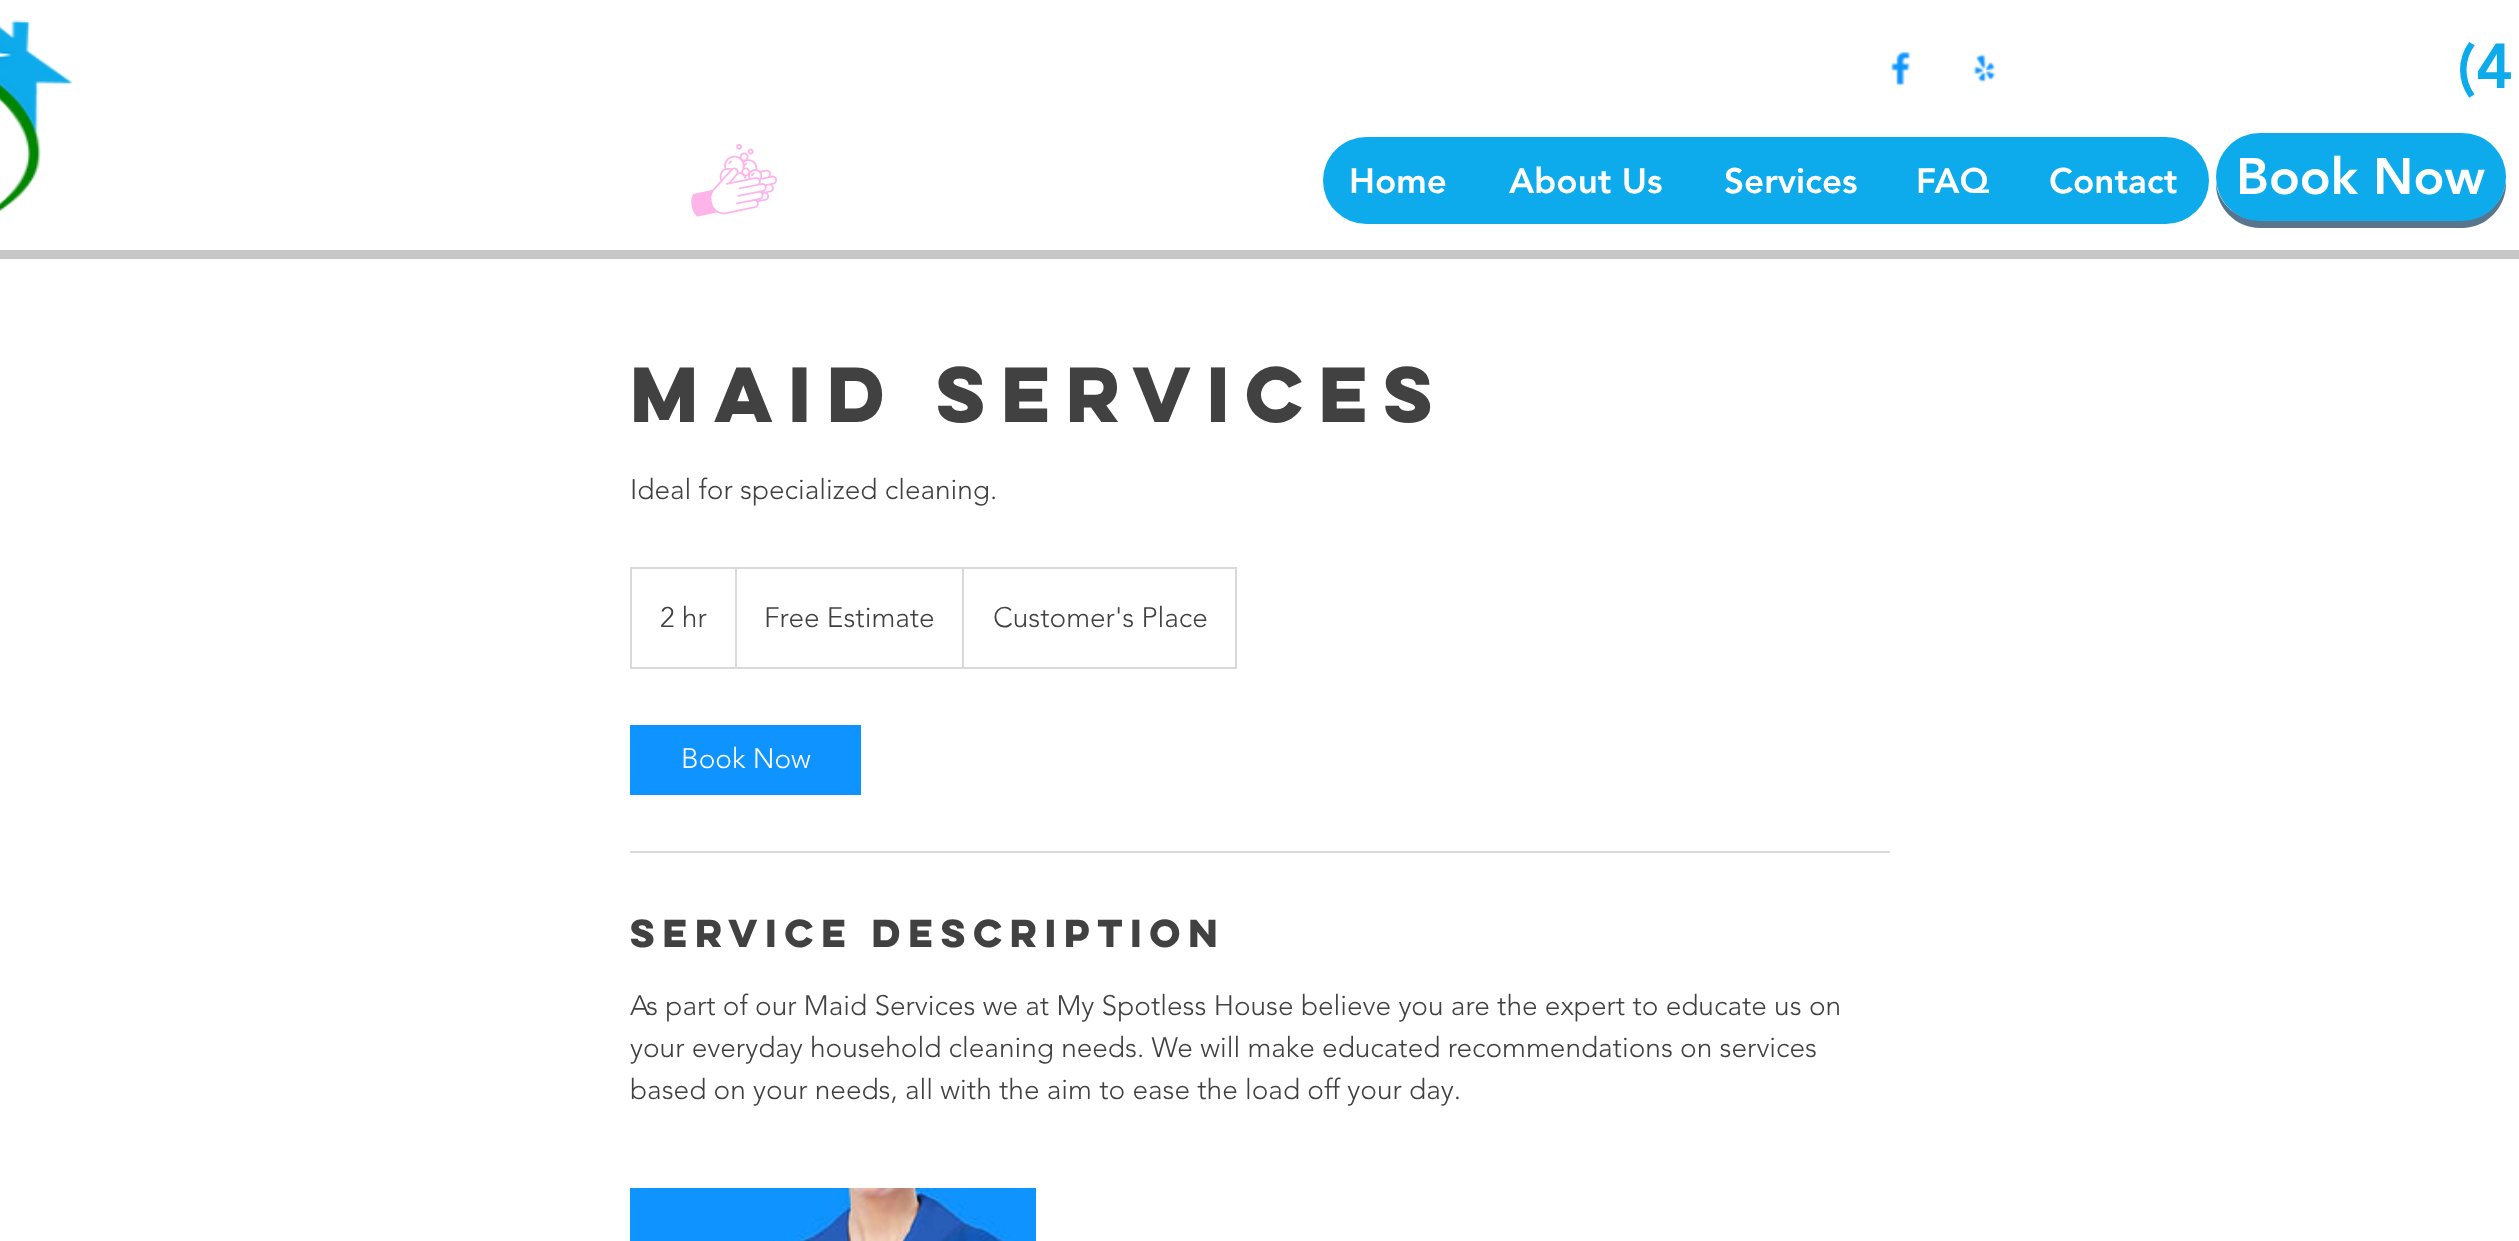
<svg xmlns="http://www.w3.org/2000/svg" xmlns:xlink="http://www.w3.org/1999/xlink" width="2519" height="1241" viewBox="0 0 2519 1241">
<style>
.cls-1{font:900 63px 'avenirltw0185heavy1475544';fill:#0dabec}
.cls-2{font:900 35px 'avenirltw0185heavy1475544';fill:#ffffff}
.cls-3{font:900 50.75px 'avenirltw0185heavy1475544';fill:#ffffff}
.cls-4{font:bold 70px 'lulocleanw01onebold';fill:#414141}
.cls-5{font:300 28px 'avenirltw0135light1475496';fill:#414141}
.cls-6{font:300 28px 'avenirltw0135light1475496';fill:#ffffff}
.cls-7{font:bold 35px 'lulocleanw01onebold';fill:#414141}
</style>
<defs>
<clipPath id="clip1"><rect x="632" y="569" width="604" height="98"/></clipPath>
</defs>
<rect width="100%" height="100%" fill="#ffffff"/>
<image xlink:href="image0.png" x="0" y="20" width="72" height="192"/>
<image xlink:href="image1.png" x="691" y="143" width="86" height="74"/>
<rect fill="#c7c7c7" x="0" y="250" width="2519" height="9"/>
<image xlink:href="image2.png" x="1891" y="51" width="20" height="35"/>
<image xlink:href="image3.png" x="1973" y="54" width="23" height="29"/>
<rect fill="#0dabec" x="1323" y="137" width="886" height="87" rx="43.5"/>
<path fill="#58758d" d="M2216 183V184C2216 208 2236 228 2260 228H2462C2486 228 2506 208 2506 184V180C2504 203 2485 220 2462 220H2259C2237 220 2219 204 2216 183Z"/>
<rect fill="#0dabec" x="2216" y="133" width="290" height="88" rx="44"/>
<rect fill="none" stroke="#d9d9d9" stroke-width="2" x="631" y="568" width="605" height="100"/>
<g clip-path="url(#clip1)">
<path fill="#d9d9d9" d="M735 667V567L737 569V667Z"/>
<path fill="#d9d9d9" d="M962 667V567L964 569V667Z"/>
</g>
<rect fill="#0f93fe" x="630" y="725" width="231" height="70"/>
<rect fill="#d9d9d9" x="630" y="851" width="1260" height="2"/>
<image xlink:href="image4.png" x="630" y="1188" width="406" height="53"/>
<image xlink:href="image5.png" x="784" y="1188" width="236" height="53"/>
<text class="cls-1" x="2457" y="88">(4</text>
<text class="cls-2" x="1349" y="193">Home</text>
<text class="cls-2" x="1509" y="193">About Us</text>
<text class="cls-2" x="1724" y="193">Services</text>
<text class="cls-2" x="1916" y="193">FAQ</text>
<text class="cls-2" x="2049" y="193">Contact</text>
<text class="cls-3" x="2236" y="194">Book Now</text>
<text class="cls-4" x="630" y="422">Maid Services</text>
<text class="cls-5" x="630" y="499">Ideal for specialized cleaning.</text>
<text class="cls-5" x="660" y="627">2 hr</text>
<text class="cls-5" x="764" y="627">Free Estimate</text>
<text class="cls-5" x="993" y="627">Customer's Place</text>
<text class="cls-6" x="681" y="768">Book Now</text>
<text class="cls-7" x="630" y="947">Service Description</text>
<text class="cls-5"><tspan x="630" y="1015">As part of our Maid Services we at My Spotless House believe you are the expert to educate us on</tspan><tspan x="630" y="1057">your everyday household cleaning needs. We will make educated recommendations on services</tspan><tspan x="630" y="1099">based on your needs, all with the aim to ease the load off your day.</tspan></text>
</svg>
